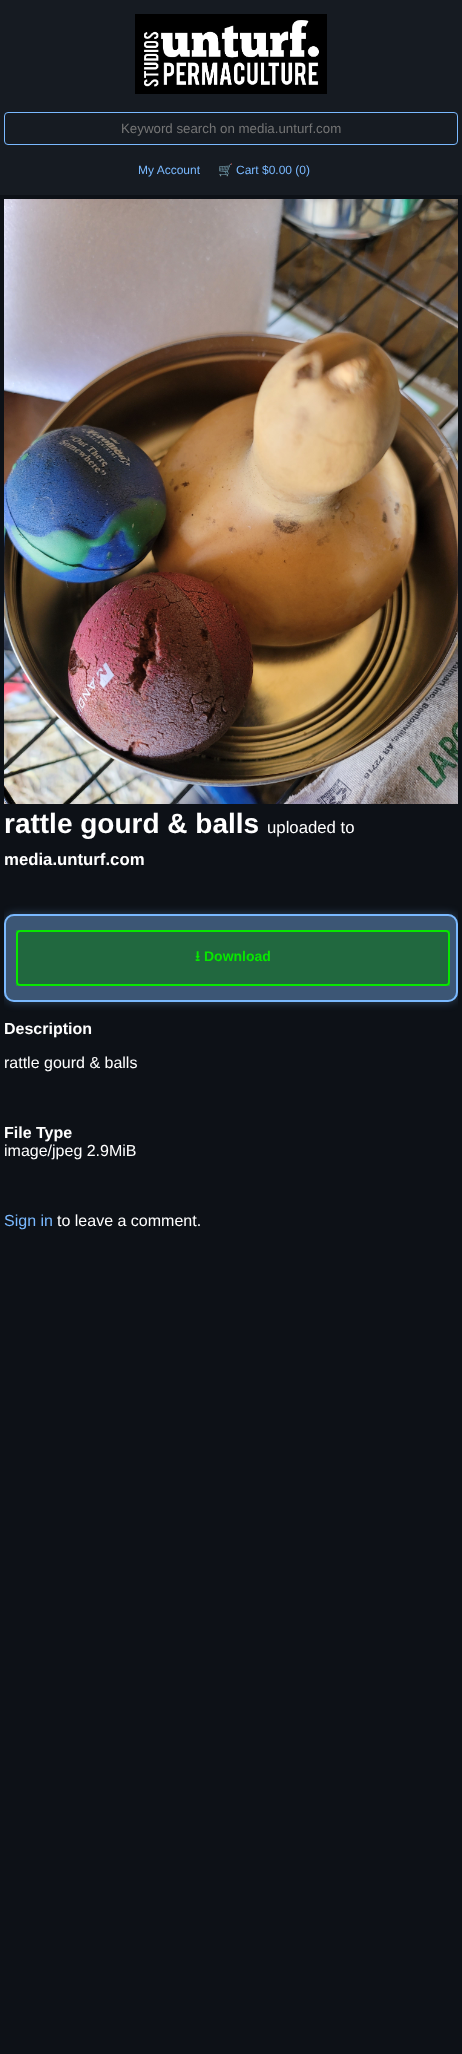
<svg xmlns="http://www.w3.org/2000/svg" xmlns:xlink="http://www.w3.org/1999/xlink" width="462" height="2054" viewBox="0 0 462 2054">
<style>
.cls-1{font:13.3px Liberation Sans;fill:#757575}
.cls-2{font:12px Liberation Sans;fill:#7ab9ff}
.cls-3{font:12px Noto Color Emoji;fill:#7ab9ff}
.cls-4{font:bold 28px Liberation Sans;fill:#ffffff}
.cls-5{font:16.75px Liberation Sans;fill:#ffffff}
.cls-6{font:bold 16.75px Liberation Sans;fill:#ffffff}
.cls-7{font:bold 14px 'Noto Sans Symbols 2';fill:#08e700}
.cls-8{font:bold 14px Liberation Sans;fill:#08e700}
.cls-9{font:bold 16px Liberation Sans;fill:#ffffff}
.cls-10{font:16px Liberation Sans;fill:#ffffff}
.cls-11{font:16px Liberation Sans;fill:#7ab9ff}
</style>
<defs>
<clipPath id="clip1"><rect x="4" y="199" width="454" height="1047"/></clipPath>
</defs>
<rect width="100%" height="100%" fill="#0d1117"/>
<rect fill="#161b22" x="0" y="0" width="462" height="195"/>
<image xlink:href="image0.png" x="135" y="14" width="192" height="80"/>
<rect fill="none" stroke="#7ab9ff" x="4.5" y="112.5" width="453" height="32" rx="3.5"/>
<image xlink:href="image1.png" x="4" y="199" width="454" height="605"/>
<g clip-path="url(#clip1)">
<rect fill="#7ab9ff" fill-opacity="0.3" filter="blur(5px)" x="4" y="914" width="454" height="88" rx="10"/>
</g>
<rect fill="#2d3748" x="4" y="914" width="454" height="88" rx="10"/>
<image xlink:href="image2.png" x="4" y="914" width="454" height="88"/>
<rect fill="none" stroke="#7ab9ff" stroke-width="2" x="5" y="915" width="452" height="86" rx="9"/>
<rect fill="#2d3748" x="16" y="930" width="434" height="56" rx="4"/>
<rect fill="#00fb24" fill-opacity="0.25" x="16" y="930" width="434" height="56"/>
<rect fill="none" stroke="#08e700" stroke-width="2" x="17" y="931" width="432" height="54" rx="3"/>
<text class="cls-1" x="121" y="133">Keyword search on media.unturf.com</text>
<text class="cls-2" x="138" y="174">My Account</text>
<text class="cls-3" x="218" y="174">🛒</text>
<text class="cls-2" x="236" y="174">Cart $0.00 (0)</text>
<text class="cls-4" x="4" y="833">rattle gourd &amp; balls</text>
<text class="cls-5" x="267" y="833">uploaded to</text>
<text class="cls-6" x="4" y="865">media.unturf.com</text>
<text class="cls-7" x="195" y="961">⭳</text>
<text class="cls-8" x="204" y="961">Download</text>
<text class="cls-9" x="4" y="1034">Description</text>
<text class="cls-10" x="4" y="1068">rattle gourd &amp; balls</text>
<text class="cls-9" x="4" y="1138">File Type</text>
<text class="cls-10" x="4" y="1156">image/jpeg 2.9MiB</text>
<text class="cls-11" x="4" y="1226">Sign in</text>
<text class="cls-10" x="57" y="1226">to leave a comment.</text>
</svg>
